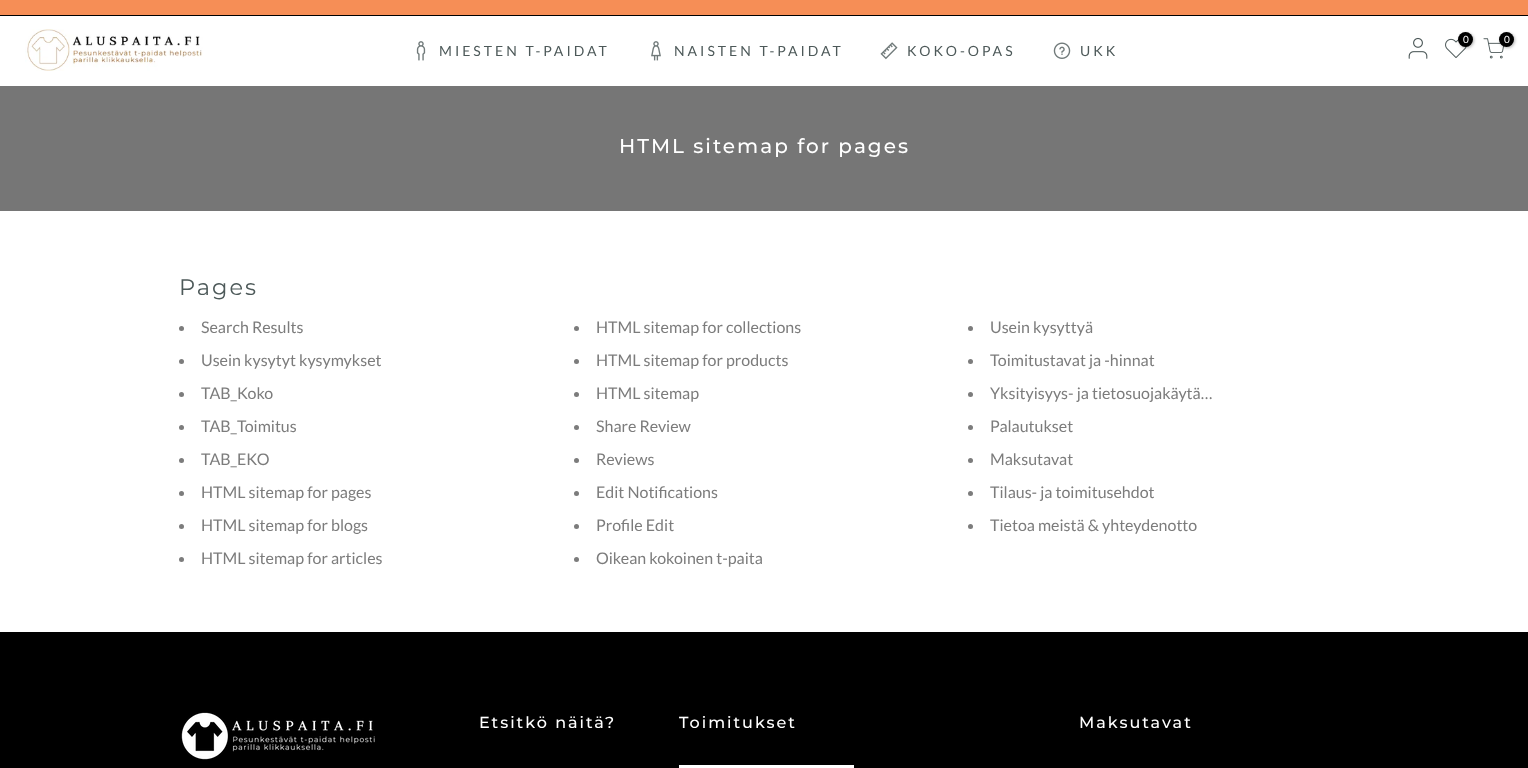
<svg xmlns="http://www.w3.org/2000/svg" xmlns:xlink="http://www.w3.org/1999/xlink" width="1528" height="768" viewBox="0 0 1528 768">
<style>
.cls-1{font:10px Lato;fill:#ffffff}
.cls-2{font:14px Lato;letter-spacing:3px;fill:#4d5959}
.cls-3{font:500 20px Montserrat;letter-spacing:2px;fill:#ffffff}
.cls-4{font:22.5px Montserrat;letter-spacing:2px;fill:#4d5959}
.cls-5{font:16px Lato;fill:#7c7c7c}
.cls-6{font:500 16px Montserrat;letter-spacing:2px;fill:#ffffff}
</style>
<rect width="100%" height="100%" fill="#ffffff"/>
<rect fill="#f68e56" x="0" y="0" width="1528" height="15"/>
<rect fill="#000000" x="0" y="15" width="1528" height="1"/>
<image xlink:href="image0.png" x="25" y="29" width="178" height="42"/>
<image xlink:href="image1.png" x="1408" y="37" width="20" height="22"/>
<image xlink:href="image2.png" x="1445" y="38" width="22" height="20"/>
<rect fill="#000000" fill-opacity="0.3" filter="blur(1.5px)" x="1459" y="33" width="15" height="15" rx="7.5"/>
<circle fill="#000000" cx="1465.5" cy="39.5" r="7.5"/>
<image xlink:href="image3.png" x="1483" y="38" width="21" height="21"/>
<rect fill="#000000" fill-opacity="0.3" filter="blur(1.5px)" x="1500" y="33" width="15" height="15" rx="7.5"/>
<circle fill="#000000" cx="1506.5" cy="39.5" r="7.5"/>
<image xlink:href="image4.png" x="416" y="41" width="10" height="20"/>
<image xlink:href="image5.png" x="651" y="41" width="10" height="20"/>
<image xlink:href="image6.png" x="880" y="42" width="18" height="18"/>
<image xlink:href="image7.png" x="1053" y="42" width="18" height="17"/>
<rect fill="#767676" x="0" y="86" width="1528" height="125"/>
<circle fill="#7c7c7c" cx="181.5" cy="328.5" r="2.5"/>
<circle fill="#7c7c7c" cx="576.5" cy="328.5" r="2.5"/>
<circle fill="#7c7c7c" cx="970.5" cy="328.5" r="2.5"/>
<circle fill="#7c7c7c" cx="181.5" cy="361.5" r="2.5"/>
<circle fill="#7c7c7c" cx="576.5" cy="361.5" r="2.5"/>
<circle fill="#7c7c7c" cx="970.5" cy="361.5" r="2.5"/>
<circle fill="#7c7c7c" cx="181.5" cy="394.5" r="2.5"/>
<circle fill="#7c7c7c" cx="576.5" cy="394.5" r="2.5"/>
<circle fill="#7c7c7c" cx="970.5" cy="394.5" r="2.5"/>
<circle fill="#7c7c7c" cx="181.5" cy="427.5" r="2.5"/>
<circle fill="#7c7c7c" cx="576.5" cy="427.5" r="2.5"/>
<circle fill="#7c7c7c" cx="970.5" cy="427.5" r="2.5"/>
<circle fill="#7c7c7c" cx="181.5" cy="460.5" r="2.5"/>
<circle fill="#7c7c7c" cx="576.5" cy="460.5" r="2.5"/>
<circle fill="#7c7c7c" cx="970.5" cy="460.5" r="2.5"/>
<circle fill="#7c7c7c" cx="181.5" cy="493.5" r="2.5"/>
<circle fill="#7c7c7c" cx="576.5" cy="493.5" r="2.5"/>
<circle fill="#7c7c7c" cx="970.5" cy="493.5" r="2.5"/>
<circle fill="#7c7c7c" cx="181.5" cy="526.5" r="2.5"/>
<circle fill="#7c7c7c" cx="576.5" cy="526.5" r="2.5"/>
<circle fill="#7c7c7c" cx="970.5" cy="526.5" r="2.5"/>
<circle fill="#7c7c7c" cx="181.5" cy="559.5" r="2.5"/>
<circle fill="#7c7c7c" cx="576.5" cy="559.5" r="2.5"/>
<rect fill="#000000" x="0" y="632" width="1528" height="136"/>
<image xlink:href="image8.png" x="181" y="712" width="194" height="48"/>
<rect fill="#ffffff" x="679" y="765" width="175" height="3"/>
<text class="cls-1" x="1463" y="43">0</text>
<text class="cls-1" x="1504" y="43">0</text>
<text class="cls-2" x="439" y="56">MIESTEN T-PAIDAT</text>
<text class="cls-2" x="674" y="56">NAISTEN T-PAIDAT</text>
<text class="cls-2" x="907" y="56">KOKO-OPAS</text>
<text class="cls-2" x="1080" y="56">UKK</text>
<text class="cls-3" x="619" y="153">HTML sitemap for pages</text>
<text class="cls-4" x="179" y="295">Pages</text>
<text class="cls-5" x="201" y="333">Search Results</text>
<text class="cls-5" x="596" y="333">HTML sitemap for collections</text>
<text class="cls-5" x="990" y="333">Usein kysyttyä</text>
<text class="cls-5" x="201" y="366">Usein kysytyt kysymykset</text>
<text class="cls-5" x="596" y="366">HTML sitemap for products</text>
<text class="cls-5" x="990" y="366">Toimitustavat ja -hinnat</text>
<text class="cls-5" x="201" y="399">TAB_Koko</text>
<text class="cls-5" x="596" y="399">HTML sitemap</text>
<text class="cls-5" x="990" y="399">Yksityisyys- ja tietosuojakäytä…</text>
<text class="cls-5" x="201" y="432">TAB_Toimitus</text>
<text class="cls-5" x="596" y="432">Share Review</text>
<text class="cls-5" x="990" y="432">Palautukset</text>
<text class="cls-5" x="201" y="465">TAB_EKO</text>
<text class="cls-5" x="596" y="465">Reviews</text>
<text class="cls-5" x="990" y="465">Maksutavat</text>
<text class="cls-5" x="201" y="498">HTML sitemap for pages</text>
<text class="cls-5" x="596" y="498">Edit Notifications</text>
<text class="cls-5" x="990" y="498">Tilaus- ja toimitusehdot</text>
<text class="cls-5" x="201" y="531">HTML sitemap for blogs</text>
<text class="cls-5" x="596" y="531">Profile Edit</text>
<text class="cls-5" x="990" y="531">Tietoa meistä &amp; yhteydenotto</text>
<text class="cls-5" x="201" y="564">HTML sitemap for articles</text>
<text class="cls-5" x="596" y="564">Oikean kokoinen t-paita</text>
<text class="cls-6" x="479" y="728">Etsitkö näitä?</text>
<text class="cls-6" x="679" y="728">Toimitukset</text>
<text class="cls-6" x="1079" y="728">Maksutavat</text>
</svg>
